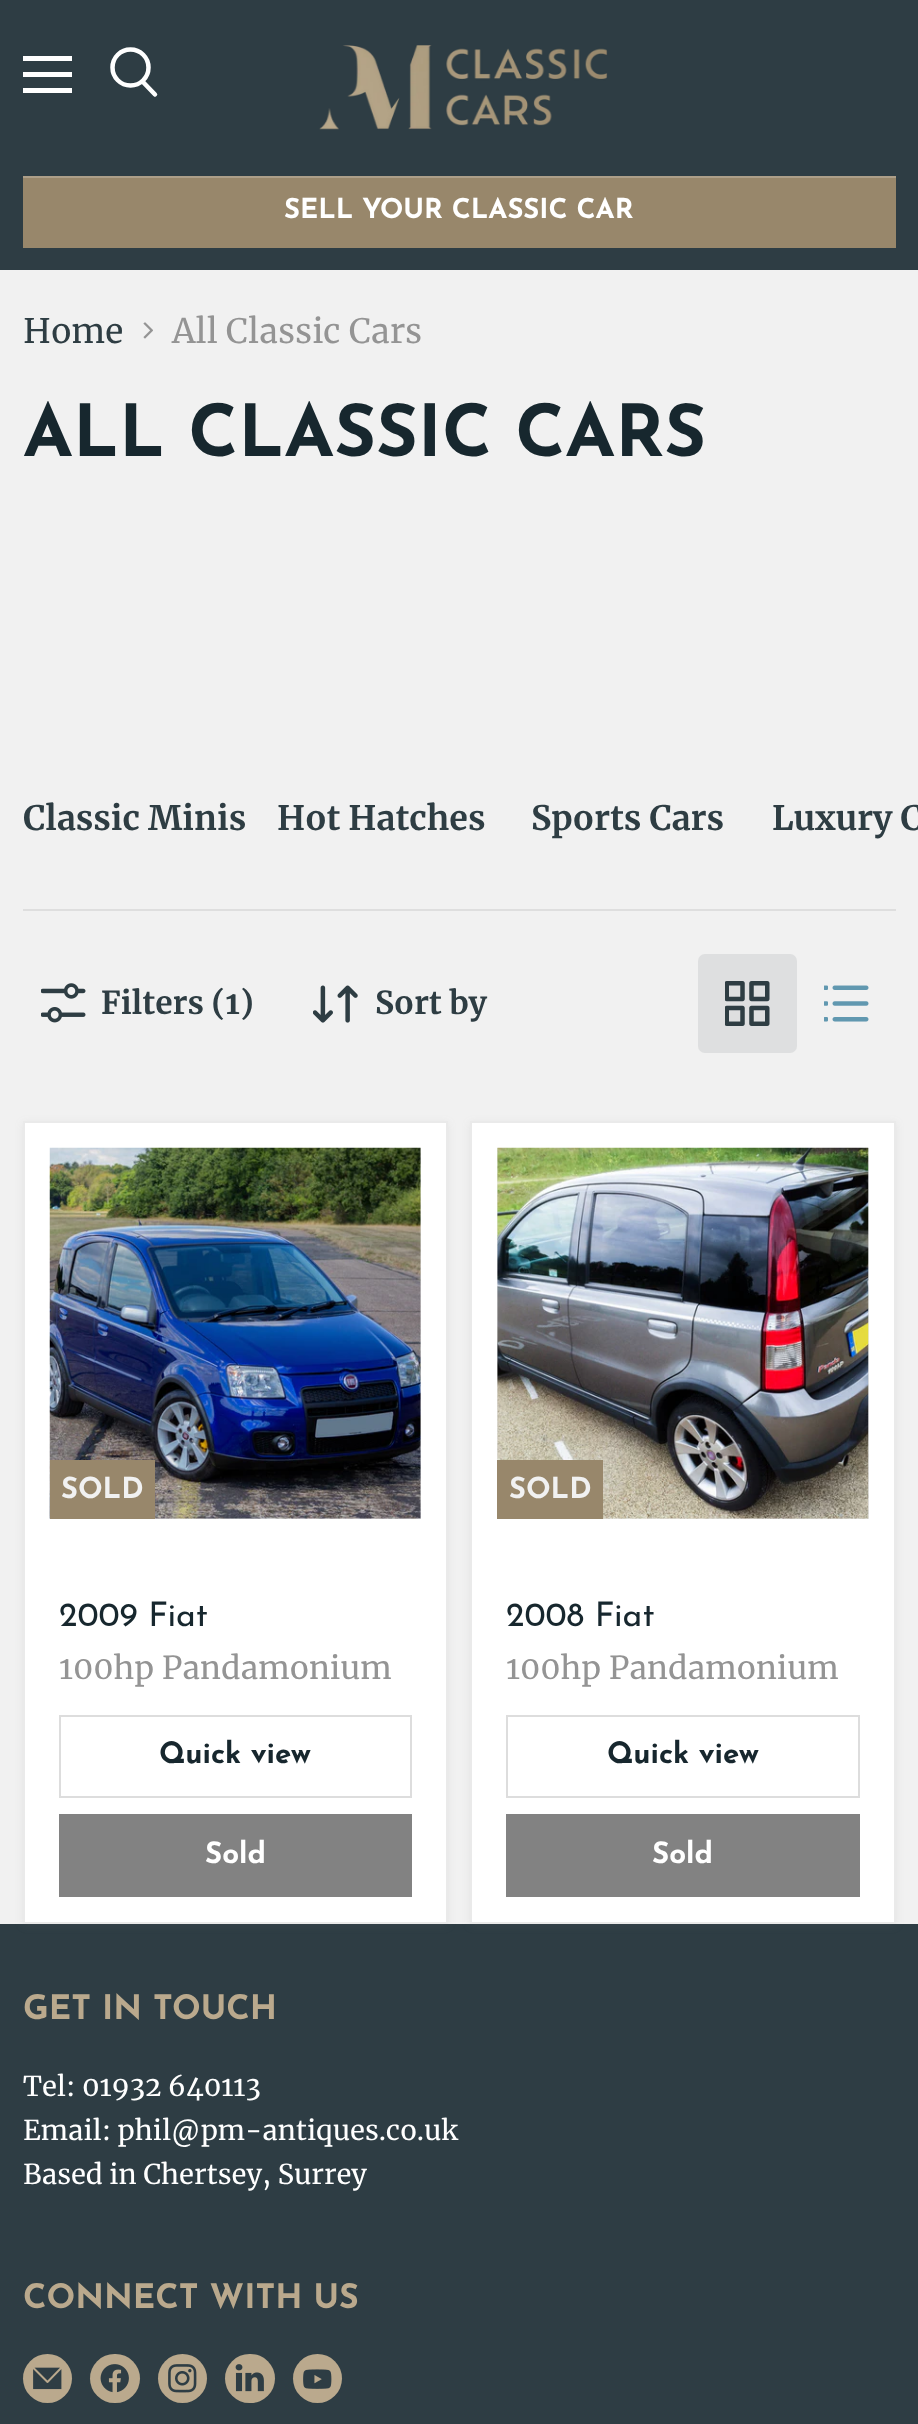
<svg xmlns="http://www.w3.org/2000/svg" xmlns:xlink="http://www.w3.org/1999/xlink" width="918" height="2424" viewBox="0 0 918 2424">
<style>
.cls-1{font:bold 27.4px Josefin Sans;fill:#ffffff}
.cls-2{font:33.75px Merriweather;fill:#2e3d43}
.cls-3{font:33.75px Merriweather;fill:#949494}
.cls-4{font:bold 71.75px Josefin Sans;fill:#17272e}
.cls-5{font:bold 33.75px Merriweather;fill:#2e3d43}
.cls-6{font:bold 31.6px Merriweather;fill:#2e3d43}
.cls-7{font:bold 29px Josefin Sans;fill:#f1f1f1}
.cls-8{font:33.75px Josefin Sans;fill:#17272e}
.cls-9{font:31.6px Merriweather;fill:#949494}
.cls-10{font:bold 29.5px Josefin Sans;fill:#17272e}
.cls-11{font:bold 29.5px Josefin Sans;fill:#ffffff}
.cls-12{font:bold 33.75px Josefin Sans;fill:#baa98d}
.cls-13{font:27.4px Merriweather;fill:#ffffff}
</style>
<rect width="100%" height="100%" fill="#f1f1f1"/>
<rect fill="#2e3d44" x="0" y="0" width="918" height="270"/>
<rect fill="#ffffff" x="23" y="56" width="49" height="5"/>
<rect fill="#ffffff" x="23" y="72" width="49" height="5"/>
<rect fill="#ffffff" x="23" y="88" width="49" height="5"/>
<path fill="none" stroke="#ffffff" stroke-width="4.5" stroke-linecap="round" d="M155 94.5L143 82"/>
<circle fill="none" stroke="#ffffff" stroke-width="4.5" cx="130.5" cy="67.5" r="18"/>
<image xlink:href="image0.png" x="319" y="45" width="289" height="85"/>
<rect fill="#98876b" x="23" y="178" width="873" height="70"/>
<rect fill="#ad9f89" x="23" y="176" width="873" height="2"/>
<image xlink:href="image1.png" x="143" y="322" width="10" height="17"/>
<rect fill="#dedede" x="23" y="909" width="873" height="2"/>
<image xlink:href="image2.png" x="41" y="983" width="45" height="40"/>
<image xlink:href="image3.png" x="313" y="985" width="45" height="38"/>
<rect fill="#dedfe0" x="698" y="954" width="99" height="99" rx="7"/>
<image xlink:href="image4.png" x="725" y="981" width="45" height="45"/>
<image xlink:href="image5.png" x="824" y="985" width="45" height="37"/>
<rect fill="#2e3d44" x="0" y="1924" width="918" height="500"/>
<rect fill="#797979" fill-opacity="0.11" filter="blur(4.5px)" x="23" y="1123" width="425" height="803"/>
<rect fill="#ffffff" stroke="#eaeaea" stroke-width="2" x="24" y="1122" width="423" height="801"/>
<rect fill="#e8e9e9" x="155" y="1148" width="266" height="371"/>
<image xlink:href="image6.png" x="49" y="1147" width="372" height="372"/>
<rect fill="#98876b" x="50" y="1460" width="105" height="59"/>
<rect fill="none" stroke="#dddddd" stroke-width="2" x="60" y="1716" width="351" height="81"/>
<rect fill="#828282" x="59" y="1814" width="353" height="83"/>
<rect fill="#797979" fill-opacity="0.11" filter="blur(4.5px)" x="470" y="1123" width="426" height="803"/>
<rect fill="#ffffff" stroke="#eaeaea" stroke-width="2" x="471" y="1122" width="424" height="801"/>
<rect fill="#e8e9e9" x="497" y="1148" width="372" height="371"/>
<image xlink:href="image7.png" x="497" y="1147" width="372" height="372"/>
<rect fill="#98876b" x="497" y="1460" width="106" height="59"/>
<rect fill="none" stroke="#dddddd" stroke-width="2" x="507" y="1716" width="352" height="81"/>
<rect fill="#828282" x="506" y="1814" width="354" height="83"/>
<circle fill="#baa98d" cx="47.5" cy="2378.5" r="24.5"/>
<image xlink:href="image8.png" x="33" y="2367" width="29" height="23"/>
<rect fill="#baa98d" x="90" y="2354" width="50" height="49" rx="24.5"/>
<image xlink:href="image9.png" x="100" y="2364" width="29" height="29"/>
<circle fill="#baa98d" cx="182.5" cy="2378.5" r="24.5"/>
<image xlink:href="image10.png" x="168" y="2364" width="29" height="29"/>
<rect fill="#baa98d" x="225" y="2354" width="50" height="49" rx="24.5"/>
<image xlink:href="image11.png" x="235" y="2364" width="29" height="28"/>
<circle fill="#baa98d" cx="317.5" cy="2378.5" r="24.5"/>
<image xlink:href="image12.png" x="303" y="2369" width="29" height="20"/>
<text class="cls-1" x="284" y="218">SELL YOUR CLASSIC CAR</text>
<text class="cls-2" x="23" y="343">Home</text>
<text class="cls-3" x="172" y="343">All Classic Cars</text>
<text class="cls-4" x="23" y="456">ALL CLASSIC CARS</text>
<text class="cls-5" x="23" y="830">Classic Minis</text>
<text class="cls-5" x="277" y="830">Hot Hatches</text>
<text class="cls-5" x="531" y="830">Sports Cars</text>
<text class="cls-5" x="772" y="830">Luxury C</text>
<text class="cls-6" x="101" y="1014">Filters (1)</text>
<text class="cls-6" x="375" y="1014">Sort by</text>
<text class="cls-7" x="61" y="1498">SOLD</text>
<text class="cls-8" x="59" y="1626">2009 Fiat</text>
<text class="cls-9" x="59" y="1679">100hp Pandamonium</text>
<text class="cls-10" x="159" y="1763">Quick view</text>
<text class="cls-11" x="205" y="1863">Sold</text>
<text class="cls-7" x="509" y="1498">SOLD</text>
<text class="cls-8" x="506" y="1626">2008 Fiat</text>
<text class="cls-9" x="506" y="1679">100hp Pandamonium</text>
<text class="cls-10" x="607" y="1763">Quick view</text>
<text class="cls-11" x="652" y="1863">Sold</text>
<text class="cls-12" x="23" y="2019">GET IN TOUCH</text>
<text class="cls-13"><tspan x="23" y="2096">Tel: 01932 640113</tspan><tspan x="23" y="2140">Email: phil@pm-antiques.co.uk</tspan><tspan x="23" y="2184">Based in Chertsey, Surrey</tspan></text>
<text class="cls-12" x="23" y="2308">CONNECT WITH US</text>
</svg>
